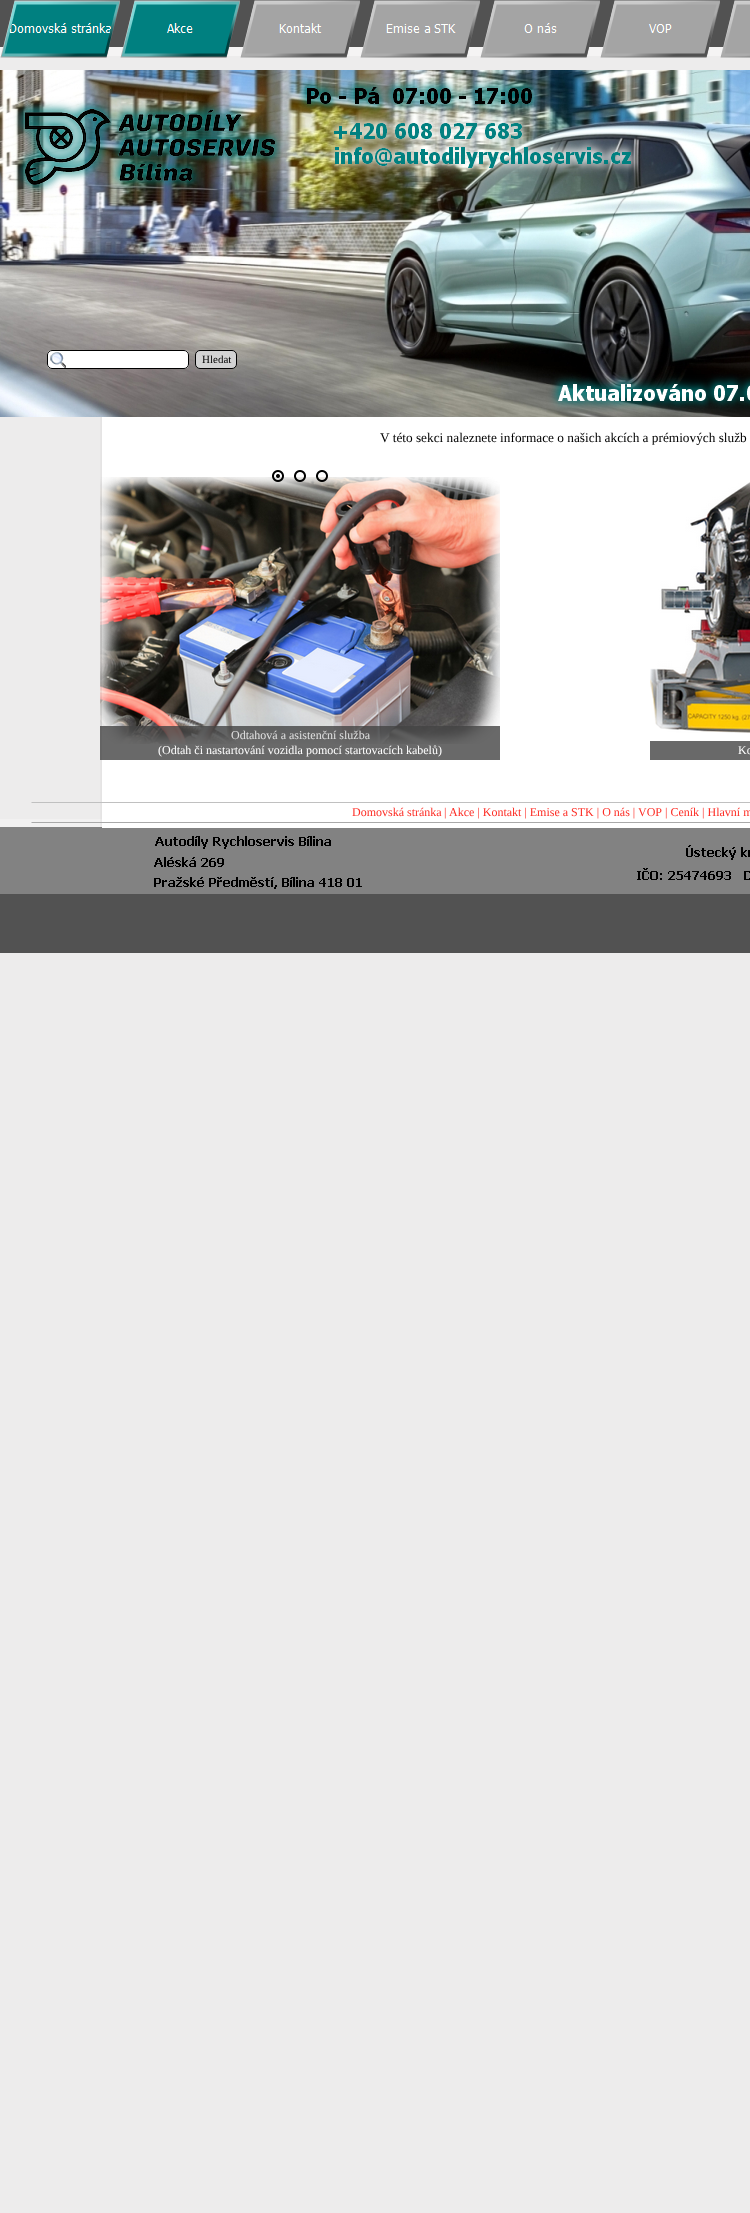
<svg xmlns="http://www.w3.org/2000/svg" xmlns:xlink="http://www.w3.org/1999/xlink" width="750" height="2213" viewBox="0 0 750 2213">
<style>
.cls-1{font:11px Liberation Serif;fill:#000000}
.cls-2{font:13.3px Liberation Serif;fill:#000000}
.cls-3{font:12px Liberation Serif;fill:#e0e0e0}
.cls-4{font:12px Liberation Serif;fill:#ffffff}
.cls-5{font:12px Liberation Serif;fill:#fd2e26}
</style>
<rect width="100%" height="100%" fill="#edecec"/>
<image xlink:href="image0.png" x="0" y="0" width="750" height="56"/>
<image xlink:href="image1.png" x="0" y="0" width="120" height="58"/>
<image xlink:href="image2.png" x="120" y="0" width="120" height="58"/>
<image xlink:href="image3.png" x="240" y="0" width="120" height="58"/>
<image xlink:href="image4.png" x="360" y="0" width="120" height="58"/>
<image xlink:href="image5.png" x="480" y="0" width="120" height="58"/>
<image xlink:href="image6.png" x="600" y="0" width="120" height="58"/>
<image xlink:href="image7.png" x="720" y="0" width="30" height="58"/>
<image xlink:href="image8.png" x="0" y="70" width="750" height="347"/>
<rect fill="#ffffff" x="47" y="350" width="142" height="19" rx="5"/>
<image xlink:href="image9.png" x="50" y="352" width="16" height="16"/>
<rect fill="none" stroke="#000000" x="47.5" y="350.5" width="141" height="18" rx="4.5"/>
<rect fill="#d3d3d3" stroke="#000000" x="195.5" y="350.5" width="41" height="18" rx="4.5"/>
<image xlink:href="image17.png" x="0" y="819" width="750" height="134"/>
<image xlink:href="image10.png" x="100" y="417" width="650" height="411"/>
<image xlink:href="image14.png" x="100" y="477" width="400" height="267"/>
<image xlink:href="image11.png" x="272" y="470" width="12" height="12"/>
<image xlink:href="image12.png" x="294" y="470" width="12" height="12"/>
<image xlink:href="image13.png" x="316" y="470" width="12" height="12"/>
<rect fill="#444444" fill-opacity="0.8" x="100" y="726" width="400" height="34"/>
<image xlink:href="image15.png" x="650" y="482" width="100" height="251"/>
<rect fill="#696969" x="650" y="741" width="100" height="19"/>
<path fill="#c0c0c0" d="M31 802H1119L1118 803H32Z"/>
<path fill="#a9a9a9" d="M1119 823H31L32 822H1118Z"/>
<image xlink:href="image16.png" x="154" y="836" width="596" height="53"/>
<text class="cls-1" x="202" y="363">Hledat</text>
<text class="cls-2" x="380" y="442">V této sekci naleznete informace o našich akcích a prémiových služb</text>
<text class="cls-3" x="231" y="739">Odtahová a asistenční služba</text>
<text class="cls-4" x="158" y="754">(Odtah či nastartování vozidla pomocí startovacích kabelů)</text>
<text class="cls-4" x="738" y="754">Ko</text>
<text class="cls-5" x="352" y="816">Domovská stránka</text>
<text class="cls-5" x="444" y="816">|</text>
<text class="cls-5" x="449" y="816">Akce | Kontakt | Emise a STK | O nás | VOP</text>
<text class="cls-5" x="665" y="816">| Ceník | Hlavní m</text>
</svg>
